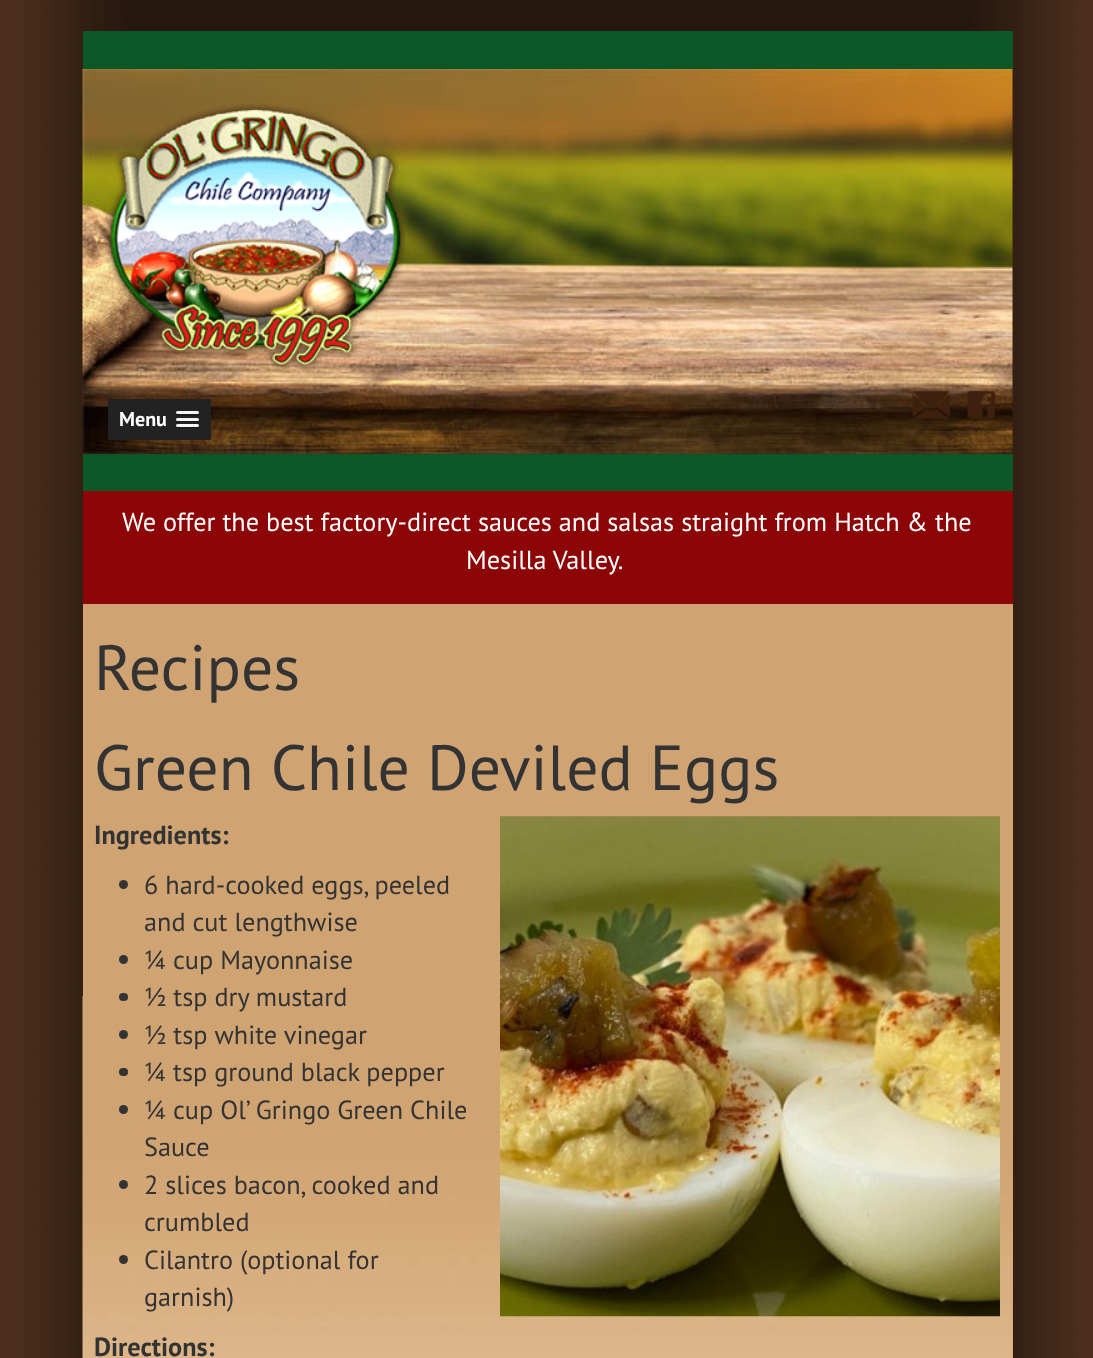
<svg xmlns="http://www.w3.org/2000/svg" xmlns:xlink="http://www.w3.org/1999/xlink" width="1093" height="1358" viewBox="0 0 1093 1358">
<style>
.cls-1{font:bold 20px PT Sans;fill:#ffffff}
.cls-2{font:26.25px PT Sans;fill:#ffffff}
.cls-3{font:63.75px PT Sans;fill:#333333}
.cls-4{font:bold 26.25px PT Sans;fill:#333333}
.cls-5{font:26.25px PT Sans;fill:#333333}
</style>
<rect width="100%" height="100%" fill="#ffffff"/>
<image xlink:href="image0.png" x="0" y="0" width="1093" height="1358"/>
<image xlink:href="image1.png" x="82" y="68" width="931" height="386"/>
<rect fill="#0b5725" x="83" y="31" width="930" height="38"/>
<rect fill="#0b5725" x="83" y="454" width="930" height="37"/>
<image xlink:href="image2.png" x="104" y="103" width="302" height="268"/>
<rect fill="#222222" x="108" y="399" width="103" height="41"/>
<path fill="#1a1a1a" d="M176.5 413.5C175.5 414 176 415.5 177 416H194C195 416 198.5 417 199 415C199 414.5 199 413.5 198.5 413.5C197.5 414 177.5 414 176.5 413.5Z"/>
<rect fill="#f5f5f5" x="176" y="411" width="23" height="3" rx="1.5"/>
<path fill="#1a1a1a" d="M176.5 419.5L176 421C176.5 423 180 422 181 422H194C195 422 198.5 423 199 421L198.5 419.5L197.5 420H177.5Z"/>
<rect fill="#f5f5f5" x="176" y="418" width="23" height="3" rx="1.5"/>
<path fill="#1a1a1a" d="M176.5 425.5L176 427C176.5 429 180 428 181 428H194C195 428 198.5 429 199 427L198.5 425.5C198.5 426 198 426 197.5 426H177.5C177 426 176.5 426 176.5 425.5Z"/>
<rect fill="#f5f5f5" x="176" y="424" width="23" height="3" rx="1.5"/>
<image xlink:href="image3.png" x="912" y="391" width="38" height="28"/>
<image xlink:href="image4.png" x="967" y="391" width="29" height="28"/>
<rect fill="#8d0607" x="83" y="491" width="930" height="113"/>
<rect fill="#d0a372" x="83" y="604" width="930" height="754"/>
<image xlink:href="image5.png" x="82" y="996" width="931" height="362"/>
<circle fill="#333333" cx="123.5" cy="884.5" r="4.5"/>
<circle fill="#333333" cx="123.5" cy="959.5" r="4.5"/>
<rect fill="#333333" x="119" y="993" width="9" height="8" rx="4"/>
<circle fill="#333333" cx="123.5" cy="1034.5" r="4.5"/>
<rect fill="#333333" x="119" y="1068" width="9" height="8" rx="4"/>
<circle fill="#333333" cx="123.5" cy="1109.5" r="4.5"/>
<circle fill="#333333" cx="123.5" cy="1184.5" r="4.5"/>
<circle fill="#333333" cx="123.5" cy="1259.5" r="4.5"/>
<image xlink:href="image6.png" x="500" y="816" width="500" height="501"/>
<text class="cls-1" x="119" y="426">Menu</text>
<text class="cls-2" x="122" y="531">We offer the best factory-direct sauces and salsas straight from Hatch &amp; the</text>
<text class="cls-2" x="466" y="569">Mesilla Valley.</text>
<text class="cls-3"><tspan x="94" y="690">Recipes</tspan><tspan x="94" y="790">Green Chile Deviled Eggs</tspan></text>
<text class="cls-4" x="94" y="844">Ingredients:</text>
<text class="cls-5"><tspan x="144" y="894">6 hard-cooked eggs, peeled</tspan><tspan x="144" y="931">and cut lengthwise</tspan><tspan x="144" y="969">¼ cup Mayonnaise</tspan><tspan x="144" y="1006">½ tsp dry mustard</tspan><tspan x="144" y="1044">½ tsp white vinegar</tspan><tspan x="144" y="1081">¼ tsp ground black pepper</tspan><tspan x="144" y="1119">¼ cup Ol’ Gringo Green Chile</tspan><tspan x="144" y="1156">Sauce</tspan><tspan x="144" y="1194">2 slices bacon, cooked and</tspan><tspan x="144" y="1231">crumbled</tspan><tspan x="144" y="1269">Cilantro (optional for</tspan><tspan x="144" y="1306">garnish)</tspan></text>
<text class="cls-4" x="94" y="1356">Directions:</text>
</svg>
